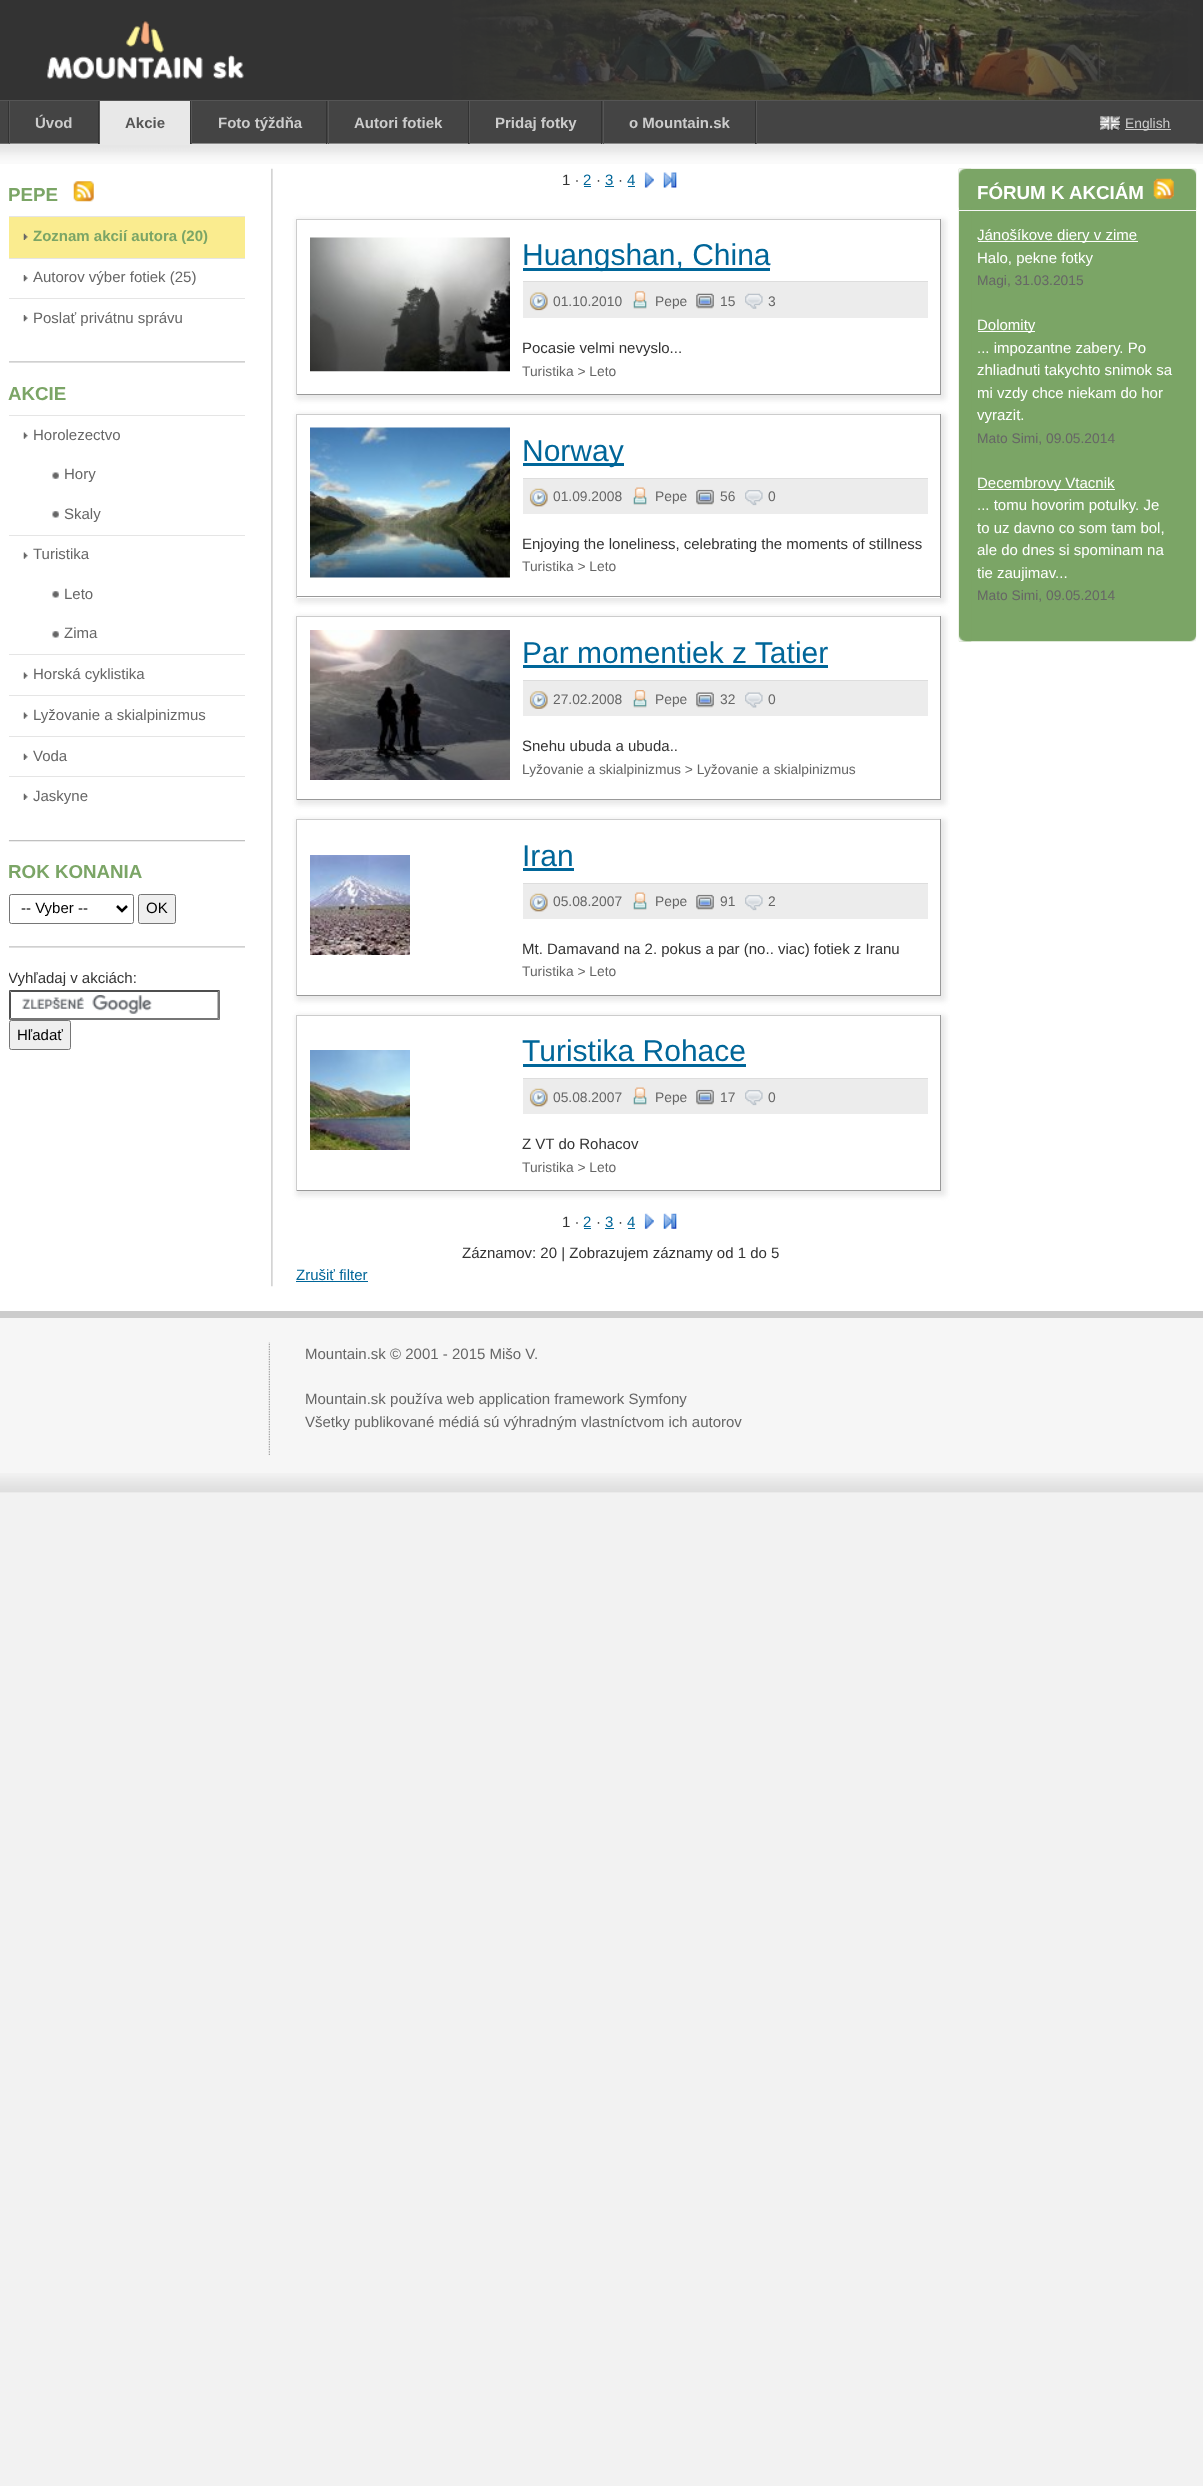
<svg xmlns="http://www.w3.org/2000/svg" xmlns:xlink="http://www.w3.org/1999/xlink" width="1203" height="2486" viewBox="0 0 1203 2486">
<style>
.cls-1{font:bold 15px Liberation Sans;fill:#cccccc}
.cls-2{font:bold 15px Liberation Sans;fill:#555555}
.cls-3{font:13.8px Liberation Sans;fill:#cccccc}
.cls-4{font:bold 18.75px Liberation Sans;fill:#7ba566}
.cls-5{font:bold 15px Liberation Sans;fill:#7ba566}
.cls-6{font:15px Liberation Sans;fill:#666666}
.cls-7{font:15px Liberation Sans;fill:#000000}
.cls-8{font:15px Liberation Sans;fill:#333333}
.cls-9{font:15px Liberation Sans;fill:#006699}
.cls-10{font:30px Liberation Sans;fill:#006699}
.cls-11{font:13.8px Liberation Sans;fill:#666666}
.cls-12{font:bold 18.75px Liberation Sans;fill:#ffffff}
.cls-13{font:15px Liberation Sans;fill:#ffffff}
</style>
<defs>
<clipPath id="clip1"><rect x="9" y="169" width="236" height="881"/></clipPath>
</defs>
<rect width="100%" height="100%" fill="#f2f2f2"/>
<rect fill="#ffffff" x="0" y="164" width="1203" height="1147"/>
<rect fill="#444444" x="0" y="101" width="1203" height="43"/>
<rect fill="#555555" x="0" y="100" width="1203" height="1"/>
<rect fill="#333333" x="8" y="101" width="1" height="43"/>
<image xlink:href="image4.png" x="0" y="143" width="1203" height="21"/>
<image xlink:href="image5.png" x="8" y="143" width="1189" height="1"/>
<rect fill="#555555" x="756" y="101" width="1" height="43"/>
<rect fill="#333333" x="98" y="101" width="1" height="43"/>
<rect fill="#555555" x="9" y="101" width="1" height="43"/>
<rect fill="#e8e8e8" x="100" y="101" width="90" height="43"/>
<rect fill="#333333" x="190" y="101" width="1" height="43"/>
<rect fill="#555555" x="99" y="101" width="1" height="43"/>
<rect fill="#333333" x="326" y="101" width="1" height="43"/>
<rect fill="#555555" x="191" y="101" width="1" height="43"/>
<rect fill="#333333" x="468" y="101" width="1" height="43"/>
<rect fill="#555555" x="328" y="101" width="1" height="43"/>
<rect fill="#333333" x="601" y="101" width="1" height="43"/>
<rect fill="#555555" x="469" y="101" width="1" height="43"/>
<rect fill="#333333" x="755" y="101" width="1" height="43"/>
<rect fill="#555555" x="603" y="101" width="1" height="43"/>
<rect fill="#333333" x="0" y="0" width="1203" height="100"/>
<image xlink:href="image0.png" x="452" y="0" width="741" height="100"/>
<image xlink:href="image1.png" x="47" y="21" width="197" height="58"/>
<image xlink:href="image2.png" x="446" y="0" width="751" height="100"/>
<image xlink:href="image3.png" x="1100" y="116" width="20" height="14"/>
<rect fill="#cccccc" x="1125" y="129" width="46" height="1"/>
<image xlink:href="image6.png" x="271" y="168" width="2" height="1119"/>
<image xlink:href="image7.png" x="9" y="361" width="236" height="2"/>
<image xlink:href="image8.png" x="73" y="181" width="21" height="21"/>
<rect fill="#faec8f" x="9" y="217" width="236" height="41"/>
<image xlink:href="image9.png" x="23" y="233" width="5" height="7"/>
<rect fill="#e5e5e5" x="9" y="216" width="236" height="1"/>
<image xlink:href="image10.png" x="23" y="275" width="5" height="7"/>
<rect fill="#e5e5e5" x="9" y="258" width="236" height="1"/>
<image xlink:href="image10.png" x="23" y="315" width="5" height="7"/>
<rect fill="#e5e5e5" x="9" y="298" width="236" height="1"/>
<image xlink:href="image11.png" x="8" y="840" width="237" height="2"/>
<image xlink:href="image12.png" x="23" y="432" width="5" height="7"/>
<rect fill="#e5e5e5" x="9" y="415" width="236" height="1"/>
<image xlink:href="image13.png" x="52" y="472" width="7" height="7"/>
<image xlink:href="image14.png" x="52" y="511" width="7" height="7"/>
<image xlink:href="image12.png" x="23" y="552" width="5" height="7"/>
<rect fill="#e5e5e5" x="9" y="535" width="236" height="1"/>
<image xlink:href="image14.png" x="52" y="591" width="7" height="7"/>
<image xlink:href="image14.png" x="52" y="631" width="7" height="7"/>
<image xlink:href="image12.png" x="23" y="672" width="5" height="7"/>
<rect fill="#e5e5e5" x="9" y="654" width="236" height="1"/>
<image xlink:href="image12.png" x="23" y="712" width="5" height="7"/>
<rect fill="#e5e5e5" x="9" y="695" width="236" height="1"/>
<image xlink:href="image15.png" x="23" y="753" width="5" height="7"/>
<rect fill="#e5e5e5" x="9" y="736" width="236" height="1"/>
<image xlink:href="image15.png" x="23" y="793" width="5" height="7"/>
<rect fill="#e5e5e5" x="9" y="776" width="236" height="1"/>
<image xlink:href="image7.png" x="9" y="946" width="236" height="2"/>
<rect fill="none" stroke="#767676" x="9.5" y="894.5" width="124" height="29" rx="2"/>
<path fill="none" stroke="#000000" stroke-width="2.5" d="M117 906L122 911L127 906"/>
<rect fill="#efefef" stroke="#767676" x="138.5" y="894.5" width="37" height="29" rx="2"/>
<image xlink:href="image16.png" x="22" y="995" width="130" height="19"/>
<path fill="#4f4f4f" d="M9 990H220L218 992H11Z"/>
<path fill="#767676" d="M220 990V1020L217.5 1017.5V992.5Z"/>
<path fill="#767676" d="M220 1020H9L11 1018H218Z"/>
<path fill="#4f4f4f" d="M9 1020V990L11 992.5V1017.5Z"/>
<rect fill="#efefef" stroke="#767676" x="9.5" y="1020.5" width="61" height="29" rx="2"/>
<rect fill="#006699" x="584" y="186" width="7" height="1"/>
<rect fill="#006699" x="605" y="186" width="9" height="1"/>
<rect fill="#006699" x="628" y="186" width="7" height="1"/>
<image xlink:href="image17.png" x="644" y="172" width="10" height="16"/>
<image xlink:href="image18.png" x="663" y="172" width="14" height="16"/>
<rect fill="#c9c9c9" fill-opacity="0.4" filter="blur(2.5px)" x="296" y="219" width="650" height="181"/>
<rect fill="#ffffff" x="297" y="220" width="643" height="174"/>
<rect fill="#cccccc" x="296" y="219" width="645" height="1"/>
<rect fill="#999999" x="940" y="219" width="1" height="176"/>
<rect fill="#999999" x="296" y="394" width="645" height="1"/>
<rect fill="#cccccc" x="296" y="219" width="1" height="176"/>
<image xlink:href="image19.png" x="310" y="237" width="200" height="135"/>
<rect fill="#006699" x="523" y="268" width="247" height="3"/>
<rect fill="#ececec" x="523" y="282" width="405" height="36"/>
<rect fill="#dddddd" x="523" y="281" width="405" height="1"/>
<image xlink:href="image20.png" x="529" y="292" width="19" height="19"/>
<image xlink:href="image21.png" x="633" y="291" width="14" height="18"/>
<image xlink:href="image22.png" x="696" y="293" width="18" height="16"/>
<image xlink:href="image23.png" x="745" y="293" width="18" height="16"/>
<rect fill="#c9c9c9" fill-opacity="0.4" filter="blur(2.5px)" x="296" y="414" width="650" height="189"/>
<rect fill="#ffffff" x="297" y="415" width="643" height="183"/>
<rect fill="#cccccc" x="296" y="414" width="645" height="1"/>
<rect fill="#999999" x="940" y="414" width="1" height="184"/>
<rect fill="#999999" x="296" y="596" width="645" height="1"/>
<rect fill="#cccccc" x="296" y="414" width="1" height="184"/>
<image xlink:href="image24.png" x="310" y="427" width="200" height="151"/>
<rect fill="#006699" x="523" y="463" width="101" height="3"/>
<rect fill="#ececec" x="523" y="479" width="405" height="35"/>
<rect fill="#dddddd" x="523" y="478" width="405" height="1"/>
<image xlink:href="image25.png" x="529" y="488" width="19" height="19"/>
<image xlink:href="image26.png" x="633" y="487" width="14" height="18"/>
<image xlink:href="image27.png" x="696" y="489" width="18" height="16"/>
<image xlink:href="image28.png" x="745" y="490" width="18" height="16"/>
<rect fill="#c9c9c9" fill-opacity="0.4" filter="blur(2.5px)" x="296" y="616" width="650" height="189"/>
<rect fill="#ffffff" x="297" y="617" width="643" height="182"/>
<rect fill="#cccccc" x="296" y="616" width="645" height="1"/>
<rect fill="#999999" x="940" y="616" width="1" height="184"/>
<rect fill="#999999" x="296" y="799" width="645" height="1"/>
<rect fill="#cccccc" x="296" y="616" width="1" height="184"/>
<image xlink:href="image29.png" x="310" y="630" width="200" height="150"/>
<rect fill="#006699" x="523" y="665" width="305" height="3"/>
<rect fill="#ececec" x="523" y="681" width="405" height="35"/>
<rect fill="#dddddd" x="523" y="680" width="405" height="1"/>
<image xlink:href="image30.png" x="529" y="691" width="19" height="18"/>
<image xlink:href="image31.png" x="633" y="690" width="14" height="18"/>
<image xlink:href="image32.png" x="696" y="692" width="18" height="16"/>
<image xlink:href="image33.png" x="745" y="692" width="18" height="16"/>
<rect fill="#c9c9c9" fill-opacity="0.4" filter="blur(2.5px)" x="296" y="819" width="650" height="182"/>
<rect fill="#ffffff" x="297" y="820" width="643" height="175"/>
<rect fill="#cccccc" x="296" y="819" width="645" height="1"/>
<rect fill="#999999" x="940" y="819" width="1" height="177"/>
<rect fill="#999999" x="296" y="995" width="645" height="1"/>
<rect fill="#cccccc" x="296" y="819" width="1" height="177"/>
<image xlink:href="image34.png" x="310" y="855" width="100" height="100"/>
<rect fill="#006699" x="523" y="868" width="51" height="3"/>
<rect fill="#ececec" x="523" y="884" width="405" height="35"/>
<rect fill="#dddddd" x="523" y="883" width="405" height="1"/>
<image xlink:href="image25.png" x="529" y="893" width="19" height="19"/>
<image xlink:href="image26.png" x="633" y="892" width="14" height="18"/>
<image xlink:href="image27.png" x="696" y="894" width="18" height="16"/>
<image xlink:href="image28.png" x="745" y="895" width="18" height="16"/>
<rect fill="#c9c9c9" fill-opacity="0.4" filter="blur(2.5px)" x="296" y="1015" width="650" height="181"/>
<rect fill="#ffffff" x="297" y="1016" width="643" height="174"/>
<rect fill="#cccccc" x="296" y="1015" width="645" height="1"/>
<rect fill="#999999" x="940" y="1015" width="1" height="176"/>
<rect fill="#999999" x="296" y="1190" width="645" height="1"/>
<rect fill="#cccccc" x="296" y="1015" width="1" height="176"/>
<image xlink:href="image35.png" x="310" y="1050" width="100" height="100"/>
<rect fill="#006699" x="523" y="1064" width="223" height="3"/>
<rect fill="#ececec" x="523" y="1079" width="405" height="35"/>
<rect fill="#dddddd" x="523" y="1078" width="405" height="1"/>
<image xlink:href="image25.png" x="529" y="1088" width="19" height="19"/>
<image xlink:href="image26.png" x="633" y="1087" width="14" height="18"/>
<image xlink:href="image27.png" x="696" y="1089" width="18" height="16"/>
<image xlink:href="image28.png" x="745" y="1090" width="18" height="16"/>
<rect fill="#006699" x="584" y="1228" width="7" height="1"/>
<rect fill="#006699" x="605" y="1228" width="9" height="1"/>
<rect fill="#006699" x="628" y="1228" width="7" height="1"/>
<image xlink:href="image36.png" x="644" y="1213" width="10" height="16"/>
<image xlink:href="image37.png" x="663" y="1213" width="14" height="16"/>
<rect fill="#006699" x="296" y="1281" width="72" height="1"/>
<image xlink:href="image38.png" x="958" y="168" width="239" height="474"/>
<image xlink:href="image39.png" x="958" y="168" width="14" height="474"/>
<image xlink:href="image40.png" x="958" y="168" width="239" height="40"/>
<image xlink:href="image41.png" x="958" y="168" width="13" height="40"/>
<rect fill="#f6f6f6" x="959" y="210" width="237" height="1"/>
<image xlink:href="image42.png" x="1153" y="178" width="21" height="21"/>
<rect fill="#ffffff" x="978" y="241" width="160" height="1"/>
<rect fill="#ffffff" x="978" y="331" width="57" height="1"/>
<rect fill="#ffffff" x="978" y="489" width="137" height="1"/>
<rect fill="#f6f6f6" x="0" y="1318" width="1203" height="175"/>
<image xlink:href="image43.png" x="0" y="1473" width="1203" height="20"/>
<rect fill="#cccccc" x="0" y="1311" width="1203" height="7"/>
<image xlink:href="image44.png" x="268" y="1342" width="2" height="113"/>
<text class="cls-1" x="35" y="128">Úvod</text>
<text class="cls-2" x="125" y="128">Akcie</text>
<text class="cls-1" x="218" y="128">Foto týždňa</text>
<text class="cls-1" x="354" y="128">Autori fotiek</text>
<text class="cls-1" x="495" y="128">Pridaj fotky</text>
<text class="cls-1" x="629" y="128">o Mountain.sk</text>
<text class="cls-3" x="1125" y="128">English</text>
<text class="cls-4" x="8" y="201">PEPE</text>
<text class="cls-5" x="33" y="241">Zoznam akcií autora (20)</text>
<text class="cls-6" x="33" y="282">Autorov výber fotiek (25)</text>
<text class="cls-6" x="33" y="323">Poslať privátnu správu</text>
<text class="cls-4" x="8" y="400">AKCIE</text>
<text class="cls-6" x="33" y="440">Horolezectvo</text>
<text class="cls-6" x="64" y="479">Hory</text>
<text class="cls-6" x="64" y="519">Skaly</text>
<text class="cls-6" x="33" y="559">Turistika</text>
<text class="cls-6" x="64" y="599">Leto</text>
<text class="cls-6" x="64" y="638">Zima</text>
<text class="cls-6" x="33" y="679">Horská cyklistika</text>
<text class="cls-6" x="33" y="720">Lyžovanie a skialpinizmus</text>
<text class="cls-6" x="33" y="761">Voda</text>
<text class="cls-6" x="33" y="801">Jaskyne</text>
<text class="cls-4" x="8" y="878">ROK KONANIA</text>
<text class="cls-7" x="21" y="913">-- Vyber --</text>
<text class="cls-7" x="146" y="913">OK</text>
<g clip-path="url(#clip1)">
<text class="cls-8" x="8" y="983">Vyhľadaj v akciách:</text>
</g>
<text class="cls-7" x="17" y="1040">Hľadať</text>
<text class="cls-8" x="562" y="185">1 ·</text>
<text class="cls-9" x="583" y="185">2</text>
<text class="cls-8" x="596" y="185">·</text>
<text class="cls-9" x="605" y="185">3</text>
<text class="cls-8" x="618" y="185">·</text>
<text class="cls-9" x="627" y="185">4</text>
<text class="cls-10" x="522" y="265">Huangshan, China</text>
<text class="cls-11" x="553" y="306">01.10.2010</text>
<text class="cls-11" x="655" y="306">Pepe</text>
<text class="cls-11" x="720" y="306">15</text>
<text class="cls-11" x="768" y="306">3</text>
<text class="cls-8" x="522" y="353">Pocasie velmi nevyslo...</text>
<text class="cls-11" x="522" y="376">Turistika &gt; Leto</text>
<text class="cls-10" x="522" y="461">Norway</text>
<text class="cls-11" x="553" y="501">01.09.2008</text>
<text class="cls-11" x="655" y="501">Pepe</text>
<text class="cls-11" x="720" y="501">56</text>
<text class="cls-11" x="768" y="501">0</text>
<text class="cls-8" x="522" y="549">Enjoying the loneliness, celebrating the moments of stillness</text>
<text class="cls-11" x="522" y="571">Turistika &gt; Leto</text>
<text class="cls-10" x="522" y="663">Par momentiek z Tatier</text>
<text class="cls-11" x="553" y="704">27.02.2008</text>
<text class="cls-11" x="655" y="704">Pepe</text>
<text class="cls-11" x="720" y="704">32</text>
<text class="cls-11" x="768" y="704">0</text>
<text class="cls-8" x="522" y="751">Snehu ubuda a ubuda..</text>
<text class="cls-11" x="522" y="774">Lyžovanie a skialpinizmus &gt; Lyžovanie a skialpinizmus</text>
<text class="cls-10" x="522" y="866">Iran</text>
<text class="cls-11" x="553" y="906">05.08.2007</text>
<text class="cls-11" x="655" y="906">Pepe</text>
<text class="cls-11" x="720" y="906">91</text>
<text class="cls-11" x="768" y="906">2</text>
<text class="cls-8" x="522" y="954">Mt. Damavand na 2. pokus a par (no.. viac) fotiek z Iranu</text>
<text class="cls-11" x="522" y="976">Turistika &gt; Leto</text>
<text class="cls-10" x="522" y="1061">Turistika Rohace</text>
<text class="cls-11" x="553" y="1102">05.08.2007</text>
<text class="cls-11" x="655" y="1102">Pepe</text>
<text class="cls-11" x="720" y="1102">17</text>
<text class="cls-11" x="768" y="1102">0</text>
<text class="cls-8" x="522" y="1149">Z VT do Rohacov</text>
<text class="cls-11" x="522" y="1172">Turistika &gt; Leto</text>
<text class="cls-8" x="562" y="1227">1 ·</text>
<text class="cls-9" x="583" y="1227">2</text>
<text class="cls-8" x="596" y="1227">·</text>
<text class="cls-9" x="605" y="1227">3</text>
<text class="cls-8" x="618" y="1227">·</text>
<text class="cls-9" x="627" y="1227">4</text>
<text class="cls-8" x="462" y="1258">Záznamov: 20 | Zobrazujem záznamy od 1 do 5</text>
<text class="cls-9" x="296" y="1280">Zrušiť filter</text>
<text class="cls-12" x="977" y="199">FÓRUM K AKCIÁM</text>
<text class="cls-13"><tspan x="977" y="240">Jánošíkove diery v zime</tspan><tspan x="977" y="263">Halo, pekne fotky</tspan></text>
<text class="cls-11" x="977" y="285">Magi, 31.03.2015</text>
<text class="cls-13"><tspan x="977" y="330">Dolomity</tspan><tspan x="977" y="353">... impozantne zabery. Po</tspan><tspan x="977" y="375">zhliadnuti takychto snimok sa</tspan><tspan x="977" y="398">mi vzdy chce niekam do hor</tspan><tspan x="977" y="420">vyrazit.</tspan></text>
<text class="cls-11" x="977" y="443">Mato Simi, 09.05.2014</text>
<text class="cls-13"><tspan x="977" y="488">Decembrovy Vtacnik</tspan><tspan x="977" y="510">... tomu hovorim potulky. Je</tspan><tspan x="977" y="533">to uz davno co som tam bol,</tspan><tspan x="977" y="555">ale do dnes si spominam na</tspan><tspan x="977" y="578">tie zaujimav...</tspan></text>
<text class="cls-11" x="977" y="600">Mato Simi, 09.05.2014</text>
<text class="cls-6" x="305" y="1359">Mountain.sk © 2001 - 2015 Mišo V.</text>
<text class="cls-6"><tspan x="305" y="1404">Mountain.sk používa web application framework Symfony</tspan><tspan x="305" y="1427">Všetky publikované médiá sú výhradným vlastníctvom ich autorov</tspan></text>
</svg>
